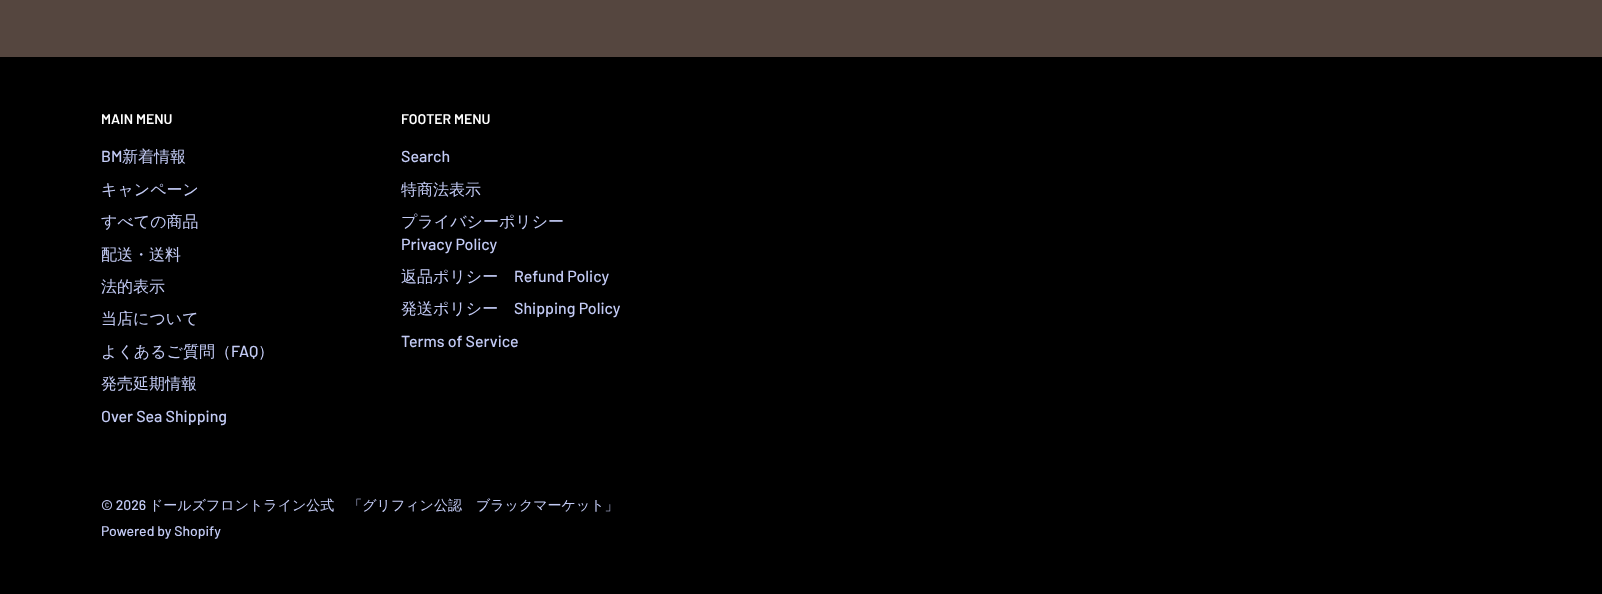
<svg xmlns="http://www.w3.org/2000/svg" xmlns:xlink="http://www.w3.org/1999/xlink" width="1602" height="594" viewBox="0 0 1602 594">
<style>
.cls-1{font:600 14px Barlow;fill:#ffffff}
.cls-2{font:500 16px Barlow;fill:#c3cbf5}
.cls-3{font:500 16px WenQuanYi Zen Hei;fill:#c3cbf5}
.cls-4{font:500 14px Barlow;fill:#c3cbf5}
.cls-5{font:500 14px WenQuanYi Zen Hei;fill:#c3cbf5}
</style>
<rect width="100%" height="100%" fill="#55463f"/>
<rect fill="#000000" x="0" y="57" width="1602" height="537"/>
<text class="cls-1" x="101" y="124">MAIN MENU</text>
<text class="cls-2" x="101" y="162">BM</text>
<text class="cls-3" x="122" y="162">新着情報</text>
<text class="cls-3" x="101" y="195">キャンペーン</text>
<text class="cls-3" x="101" y="227">すべての商品</text>
<text class="cls-3" x="101" y="260">配送・送料</text>
<text class="cls-3" x="101" y="292">法的表示</text>
<text class="cls-3" x="101" y="324">当店について</text>
<text class="cls-3" x="101" y="357">よくあるご質問（</text>
<text class="cls-2" x="231" y="357">FAQ</text>
<text class="cls-3" x="258" y="357">）</text>
<text class="cls-3" x="101" y="389">発売延期情報</text>
<text class="cls-2" x="101" y="422">Over Sea Shipping</text>
<text class="cls-1" x="401" y="124">FOOTER MENU</text>
<text class="cls-2" x="401" y="162">Search</text>
<text class="cls-3" x="401" y="195">特商法表示</text>
<text class="cls-3" x="401" y="227">プライバシーポリシー</text>
<text class="cls-2" x="401" y="250">Privacy Policy</text>
<text class="cls-3" x="401" y="282">返品ポリシー</text>
<text class="cls-2" x="514" y="282">Refund Policy</text>
<text class="cls-3" x="401" y="314">発送ポリシー</text>
<text class="cls-2" x="514" y="314">Shipping Policy</text>
<text class="cls-2" x="401" y="347">Terms of Service</text>
<text class="cls-4" x="101" y="510">© 2026</text>
<text class="cls-5" x="149" y="510">ドールズフロントライン公式　「グリフィン公認　ブラックマーケット」</text>
<text class="cls-4" x="101" y="536">Powered by Shopify</text>
</svg>
